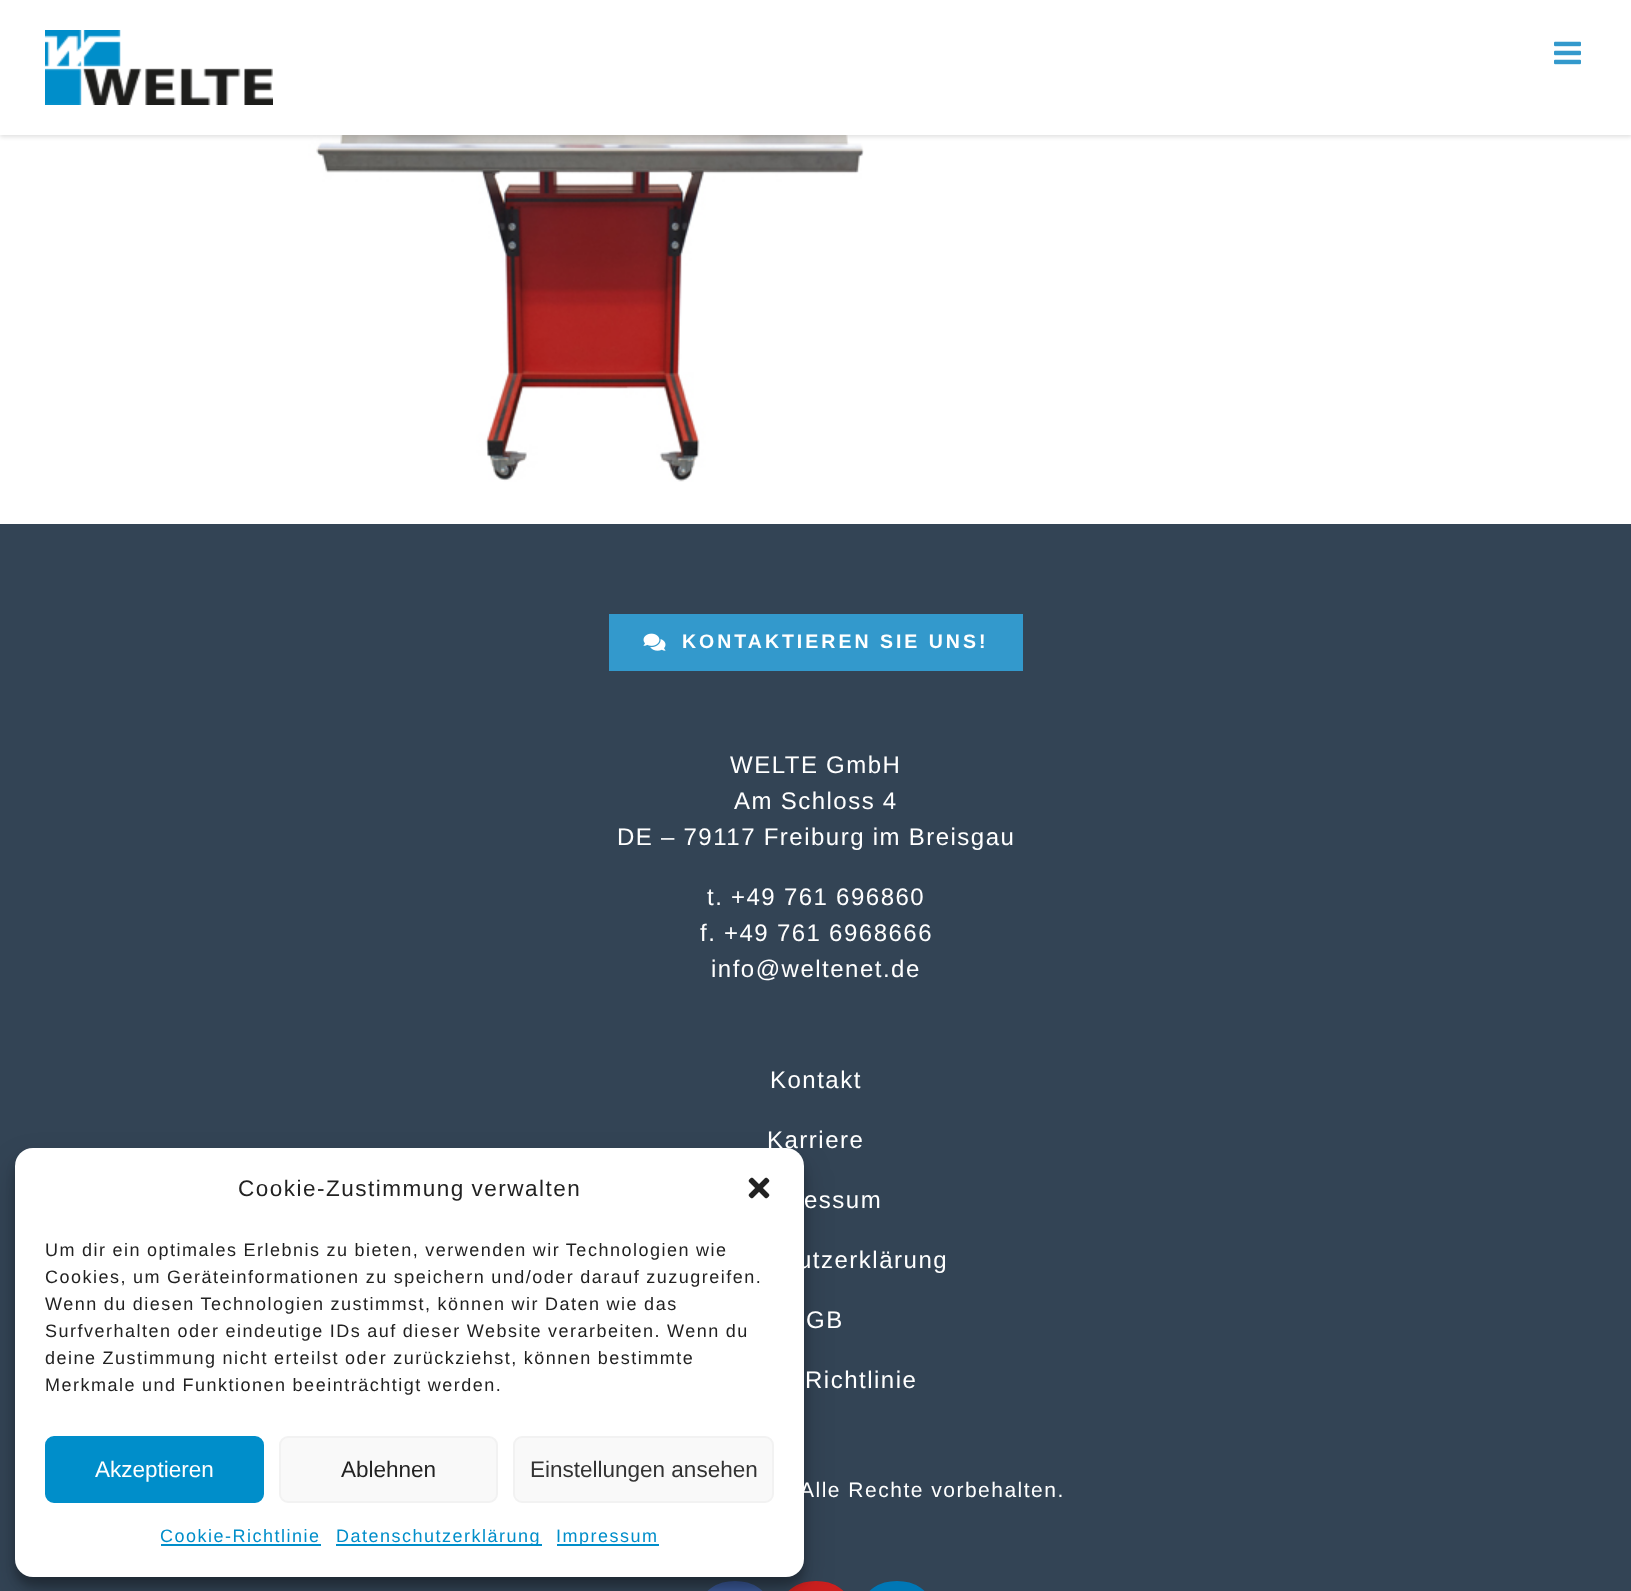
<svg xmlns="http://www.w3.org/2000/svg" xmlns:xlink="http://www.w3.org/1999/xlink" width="1631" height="1591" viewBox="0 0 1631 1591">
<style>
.cls-1{font:22.5px Liberation Sans;letter-spacing:1.5px;fill:#222222}
.cls-2{font:18px Liberation Sans;letter-spacing:1.5px;fill:#222222}
.cls-3{font:22.5px Liberation Sans;fill:#ffffff}
.cls-4{font:22.5px Liberation Sans;fill:#222222}
.cls-5{font:22.5px Liberation Sans;fill:#333333}
.cls-6{font:18px Liberation Sans;letter-spacing:1.5px;fill:#008eca}
.cls-7{font:bold 19.5px Liberation Sans;letter-spacing:3px;fill:#ffffff}
.cls-8{font:24px Liberation Sans;letter-spacing:1.5px;fill:#ffffff}
.cls-9{font:21px Liberation Sans;letter-spacing:1.5px;fill:#ffffff}
</style>
<rect width="100%" height="100%" fill="#ffffff"/>
<rect fill="#334455" x="0" y="524" width="1631" height="1067"/>
<rect fill="#3b5998" stroke="#3b5998" stroke-width="2" x="703" y="1582" width="64" height="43" rx="32"/>
<rect fill="#cd201f" stroke="#cd201f" stroke-width="2" x="784" y="1582" width="64" height="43" rx="32"/>
<rect fill="#000000" fill-opacity="0.23" filter="blur(4.5px)" x="15" y="1157" width="789" height="429" rx="18"/>
<rect fill="#000000" fill-opacity="0.19" filter="blur(15px)" x="15" y="1163" width="789" height="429" rx="18"/>
<rect fill="#ffffff" x="15" y="1148" width="789" height="429" rx="18"/>
<image xlink:href="image0.png" x="748" y="1177" width="22" height="22"/>
<rect fill="#008eca" stroke="#008eca" stroke-width="2" x="46" y="1437" width="217" height="65" rx="8"/>
<rect fill="#f9f9f9" stroke="#f2f2f2" stroke-width="2" x="280" y="1437" width="217" height="65" rx="8"/>
<rect fill="#f9f9f9" stroke="#f2f2f2" stroke-width="2" x="514" y="1437" width="259" height="65" rx="8"/>
<rect fill="#008eca" x="161" y="1544" width="160" height="2"/>
<rect fill="#008eca" x="336" y="1544" width="206" height="2"/>
<rect fill="#008eca" x="557" y="1544" width="102" height="2"/>
<image xlink:href="image3.png" x="79" y="135" width="785" height="347"/>
<rect fill="#000000" fill-opacity="0.12" filter="blur(2px)" x="0" y="2" width="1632" height="135"/>
<rect fill="#ffffff" x="0" y="0" width="1631" height="135"/>
<image xlink:href="image1.png" x="45" y="30" width="228" height="75"/>
<image xlink:href="image2.png" x="1554" y="41" width="27" height="24"/>
<rect fill="#3399cc" x="609" y="614" width="414" height="57"/>
<image xlink:href="image4.png" x="643" y="633" width="23" height="18"/>
<rect fill="#0077b5" stroke="#0077b5" stroke-width="2" x="865" y="1582" width="64" height="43" rx="32"/>
<text class="cls-1" x="238" y="1196" word-spacing="-1">Cookie-Zustimmung verwalten</text>
<text class="cls-2"><tspan x="45" y="1256" word-spacing="-0.5">Um dir ein optimales Erlebnis zu bieten, verwenden wir Technologien wie</tspan><tspan x="45" y="1283" word-spacing="-0.5">Cookies, um Geräteinformationen zu speichern und/oder darauf zuzugreifen.</tspan><tspan x="45" y="1310" word-spacing="-0.5">Wenn du diesen Technologien zustimmst, können wir Daten wie das</tspan><tspan x="45" y="1337" word-spacing="-0.5">Surfverhalten oder eindeutige IDs auf dieser Website verarbeiten. Wenn du</tspan><tspan x="45" y="1364" word-spacing="-0.5">deine Zustimmung nicht erteilst oder zurückziehst, können bestimmte</tspan><tspan x="45" y="1391" word-spacing="-0.5">Merkmale und Funktionen beeinträchtigt werden.</tspan></text>
<text class="cls-3" x="95" y="1477">Akzeptieren</text>
<text class="cls-4" x="341" y="1477">Ablehnen</text>
<text class="cls-5" x="530" y="1477">Einstellungen ansehen</text>
<text class="cls-6" x="160" y="1542">Cookie-Richtlinie</text>
<text class="cls-6" x="336" y="1542">Datenschutzerklärung</text>
<text class="cls-6" x="556" y="1542">Impressum</text>
<text class="cls-7" x="682" y="648">KONTAKTIEREN SIE UNS!</text>
<text class="cls-8" x="730" y="773" word-spacing="-0.5">WELTE GmbH</text>
<text class="cls-8" x="734" y="809" word-spacing="-0.5">Am Schloss 4</text>
<text class="cls-8" x="617" y="845" word-spacing="-0.5">DE – 79117 Freiburg im Breisgau</text>
<text class="cls-8" x="707" y="905" word-spacing="-0.5">t. +49 761 696860</text>
<text class="cls-8" x="700" y="941" word-spacing="-0.5">f. +49 761 6968666</text>
<text class="cls-8" x="711" y="977">info@weltenet.de</text>
<text class="cls-8" x="770" y="1088">Kontakt</text>
<text class="cls-8" x="767" y="1148">Karriere</text>
<text class="cls-8" x="804" y="1208">essum</text>
<text class="cls-8" x="798" y="1268">utzerklärung</text>
<text class="cls-8" x="806" y="1328">GB</text>
<text class="cls-8" x="805" y="1388" word-spacing="-0.5">Richtlinie</text>
<text class="cls-9" x="800" y="1497">Alle Rechte vorbehalten.</text>
</svg>
